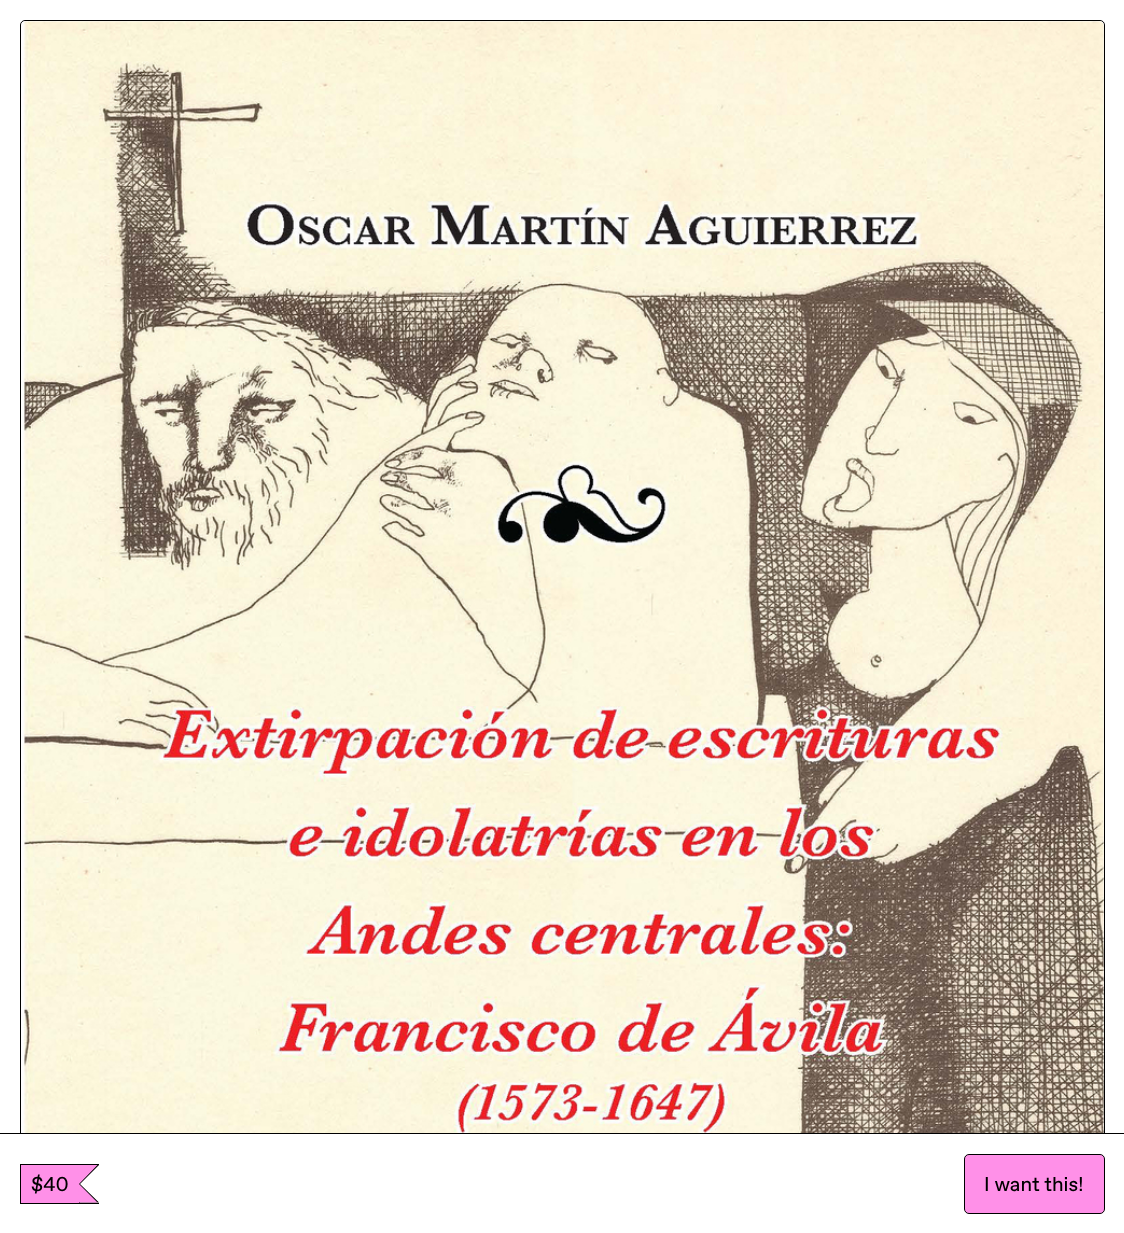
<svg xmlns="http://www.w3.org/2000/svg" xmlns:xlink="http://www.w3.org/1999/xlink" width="1124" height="1233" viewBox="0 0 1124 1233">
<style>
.cls-1{font:20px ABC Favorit;fill:#000000}
</style>
<rect width="100%" height="100%" fill="#ffffff"/>
<rect fill="none" stroke="#000000" x="20.5" y="20.5" width="1084" height="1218" rx="4.5"/>
<image xlink:href="image0.png" x="24" y="21" width="1080" height="1106"/>
<image xlink:href="image1.png" x="21" y="21" width="1083" height="1112"/>
<rect fill="#000000" x="0" y="1133" width="1124" height="1"/>
<rect fill="#ffffff" x="20" y="1134" width="1085" height="99"/>
<rect fill="#000000" x="20" y="1164" width="79" height="1"/>
<rect fill="#000000" x="20" y="1203" width="79" height="1"/>
<rect fill="#000000" x="20" y="1164" width="1" height="40"/>
<rect fill="#ff90e8" x="21" y="1165" width="58" height="38"/>
<path fill="#000000" d="M79 1165H99L80 1184ZM99 1202.5H79L80 1184Z"/>
<rect fill="#000000" x="79" y="1183" width="1" height="20"/>
<path fill="#ff90e8" d="M77.5 1165H97.5L79 1184ZM97.5 1202.5H77.5L79 1184Z"/>
<rect fill="#ff90e8" stroke="#000000" x="964.5" y="1154.5" width="140" height="59" rx="4.5"/>
<text class="cls-1" x="31" y="1191">$40</text>
<text class="cls-1" x="984" y="1191">I want this!</text>
</svg>
